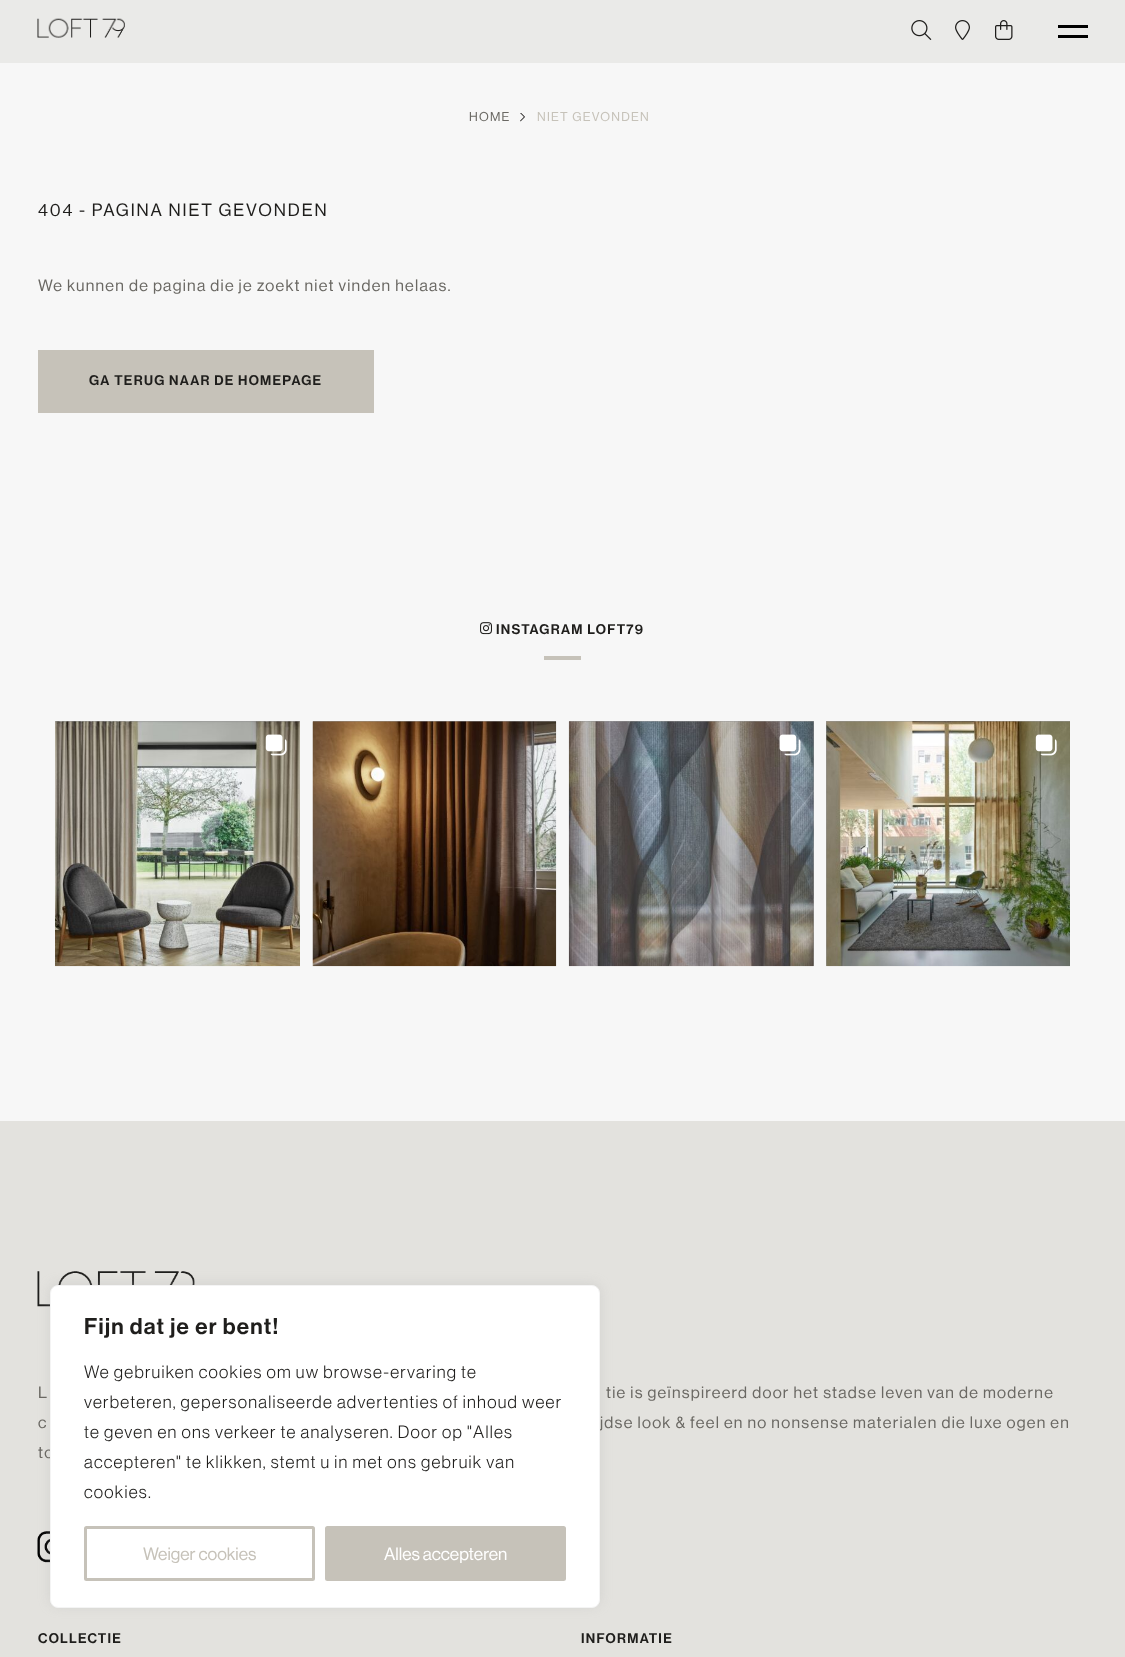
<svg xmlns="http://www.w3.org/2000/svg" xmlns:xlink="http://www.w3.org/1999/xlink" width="1125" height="1657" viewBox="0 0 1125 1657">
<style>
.cls-1{font:500 12.5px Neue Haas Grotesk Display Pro;letter-spacing:1.25px;fill:#6a6863}
.cls-2{font:500 12.5px Neue Haas Grotesk Display Pro;letter-spacing:1.25px;fill:#c6c2b9}
.cls-3{font:500 17.5px Neue Haas Grotesk Display Pro;letter-spacing:1.9px;fill:#1f1e1c}
.cls-4{font:500 16.25px Neue Haas Grotesk Display Pro;letter-spacing:1.25px;fill:#6a6863}
.cls-5{font:500 13.75px 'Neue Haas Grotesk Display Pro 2';letter-spacing:1.25px;fill:#1f1e1c}
.cls-6{font:500 17.5px Neue Haas Grotesk Display Pro;fill:#ffffff}
.cls-7{font:500 17.5px Neue Haas Grotesk Display Pro;fill:#c6c2b9}
.cls-8{font:17.5px Neue Haas Grotesk Display Pro;letter-spacing:1.25px;fill:#1f1e1c}
.cls-9{font:500 22.5px 'Neue Haas Grotesk Display Pro 2';letter-spacing:1.25px;fill:#1f1e1c}
</style>
<rect width="100%" height="100%" fill="#f7f7f7"/>
<rect fill="#eaeae8" x="0" y="0" width="1125" height="63"/>
<image xlink:href="image0.png" x="37" y="18" width="88" height="20"/>
<image xlink:href="image1.png" x="911" y="20" width="21" height="20"/>
<image xlink:href="image2.png" x="955" y="20" width="15" height="20"/>
<image xlink:href="image3.png" x="995" y="20" width="18" height="20"/>
<rect fill="#000000" x="1058" y="25" width="30" height="3"/>
<rect fill="#000000" x="1058" y="35" width="30" height="3"/>
<image xlink:href="image4.png" x="520" y="113" width="5" height="9"/>
<rect fill="#c6c2b9" x="38" y="350" width="336" height="63"/>
<image xlink:href="image5.png" x="480" y="622" width="12" height="13"/>
<rect fill="#c6c2b9" x="544" y="656" width="37" height="4"/>
<rect fill="#999999" x="55" y="721" width="245" height="1"/>
<image xlink:href="image6.png" x="55" y="721" width="245" height="246"/>
<image xlink:href="image7.png" x="265" y="734" width="22" height="22"/>
<rect fill="#999999" x="313" y="721" width="243" height="1"/>
<image xlink:href="image8.png" x="312" y="721" width="245" height="246"/>
<rect fill="#999999" x="569" y="721" width="245" height="245"/>
<image xlink:href="image9.png" x="568" y="721" width="246" height="246"/>
<image xlink:href="image10.png" x="779" y="734" width="22" height="22"/>
<rect fill="#999999" x="826" y="721" width="244" height="245"/>
<image xlink:href="image11.png" x="826" y="721" width="244" height="246"/>
<image xlink:href="image12.png" x="1035" y="734" width="22" height="22"/>
<rect fill="#e3e2de" x="0" y="1121" width="1125" height="536"/>
<image xlink:href="image13.png" x="37" y="1271" width="158" height="36"/>
<image xlink:href="image14.png" x="37" y="1531" width="13" height="32"/>
<rect fill="#acabab" fill-opacity="0.3" filter="blur(6px)" x="50" y="1284" width="550" height="322" rx="8"/>
<text class="cls-1" x="469" y="121">HOME</text>
<text class="cls-2" x="537" y="121">NIET GEVONDEN</text>
<text class="cls-3" x="38" y="216">404 - PAGINA NIET GEVONDEN</text>
<text class="cls-4" x="38" y="291">We kunnen de pagina die je zoekt niet vinden helaas.</text>
<text class="cls-5" x="89" y="385">GA TERUG NAAR DE HOMEPAGE</text>
<text class="cls-5" x="496" y="634">INSTAGRAM LOFT79</text>
<text class="cls-4" x="38" y="1398">L</text>
<text class="cls-4" x="606" y="1398">tie is geïnspireerd door het stadse leven van de moderne</text>
<text class="cls-4" x="38" y="1428">c</text>
<text class="cls-4" x="600" y="1428">jdse look &amp; feel en no nonsense materialen die luxe ogen en</text>
<text class="cls-4" x="38" y="1458">to</text>
<rect fill="#ffffff" stroke="#f4f4f4" x="50.5" y="1285.5" width="549" height="322" rx="7.5"/>
<rect fill="#c6c2b9" stroke="#c6c2b9" stroke-width="3" x="326.5" y="1527.5" width="238" height="52" rx="1"/>
<text class="cls-6" x="384" y="1560">Alles accepteren</text>
<rect fill="none" stroke="#c6c2b9" stroke-width="3" x="85.5" y="1527.5" width="228" height="52" rx="1"/>
<text class="cls-7" x="143" y="1560">Weiger cookies</text>
<text class="cls-8" x="84" y="1498">cookies.</text>
<text class="cls-8" x="84" y="1468">accepteren" te klikken, stemt u in met ons gebruik van</text>
<text class="cls-8" x="84" y="1438">te geven en ons verkeer te analyseren. Door op "Alles</text>
<text class="cls-8" x="84" y="1408">verbeteren, gepersonaliseerde advertenties of inhoud weer</text>
<text class="cls-8" x="84" y="1378">We gebruiken cookies om uw browse-ervaring te</text>
<text class="cls-9" x="84" y="1334">Fijn dat je er bent!</text>
<text class="cls-5" x="38" y="1643">COLLECTIE</text>
<text class="cls-5" x="581" y="1643">INFORMATIE</text>
</svg>
